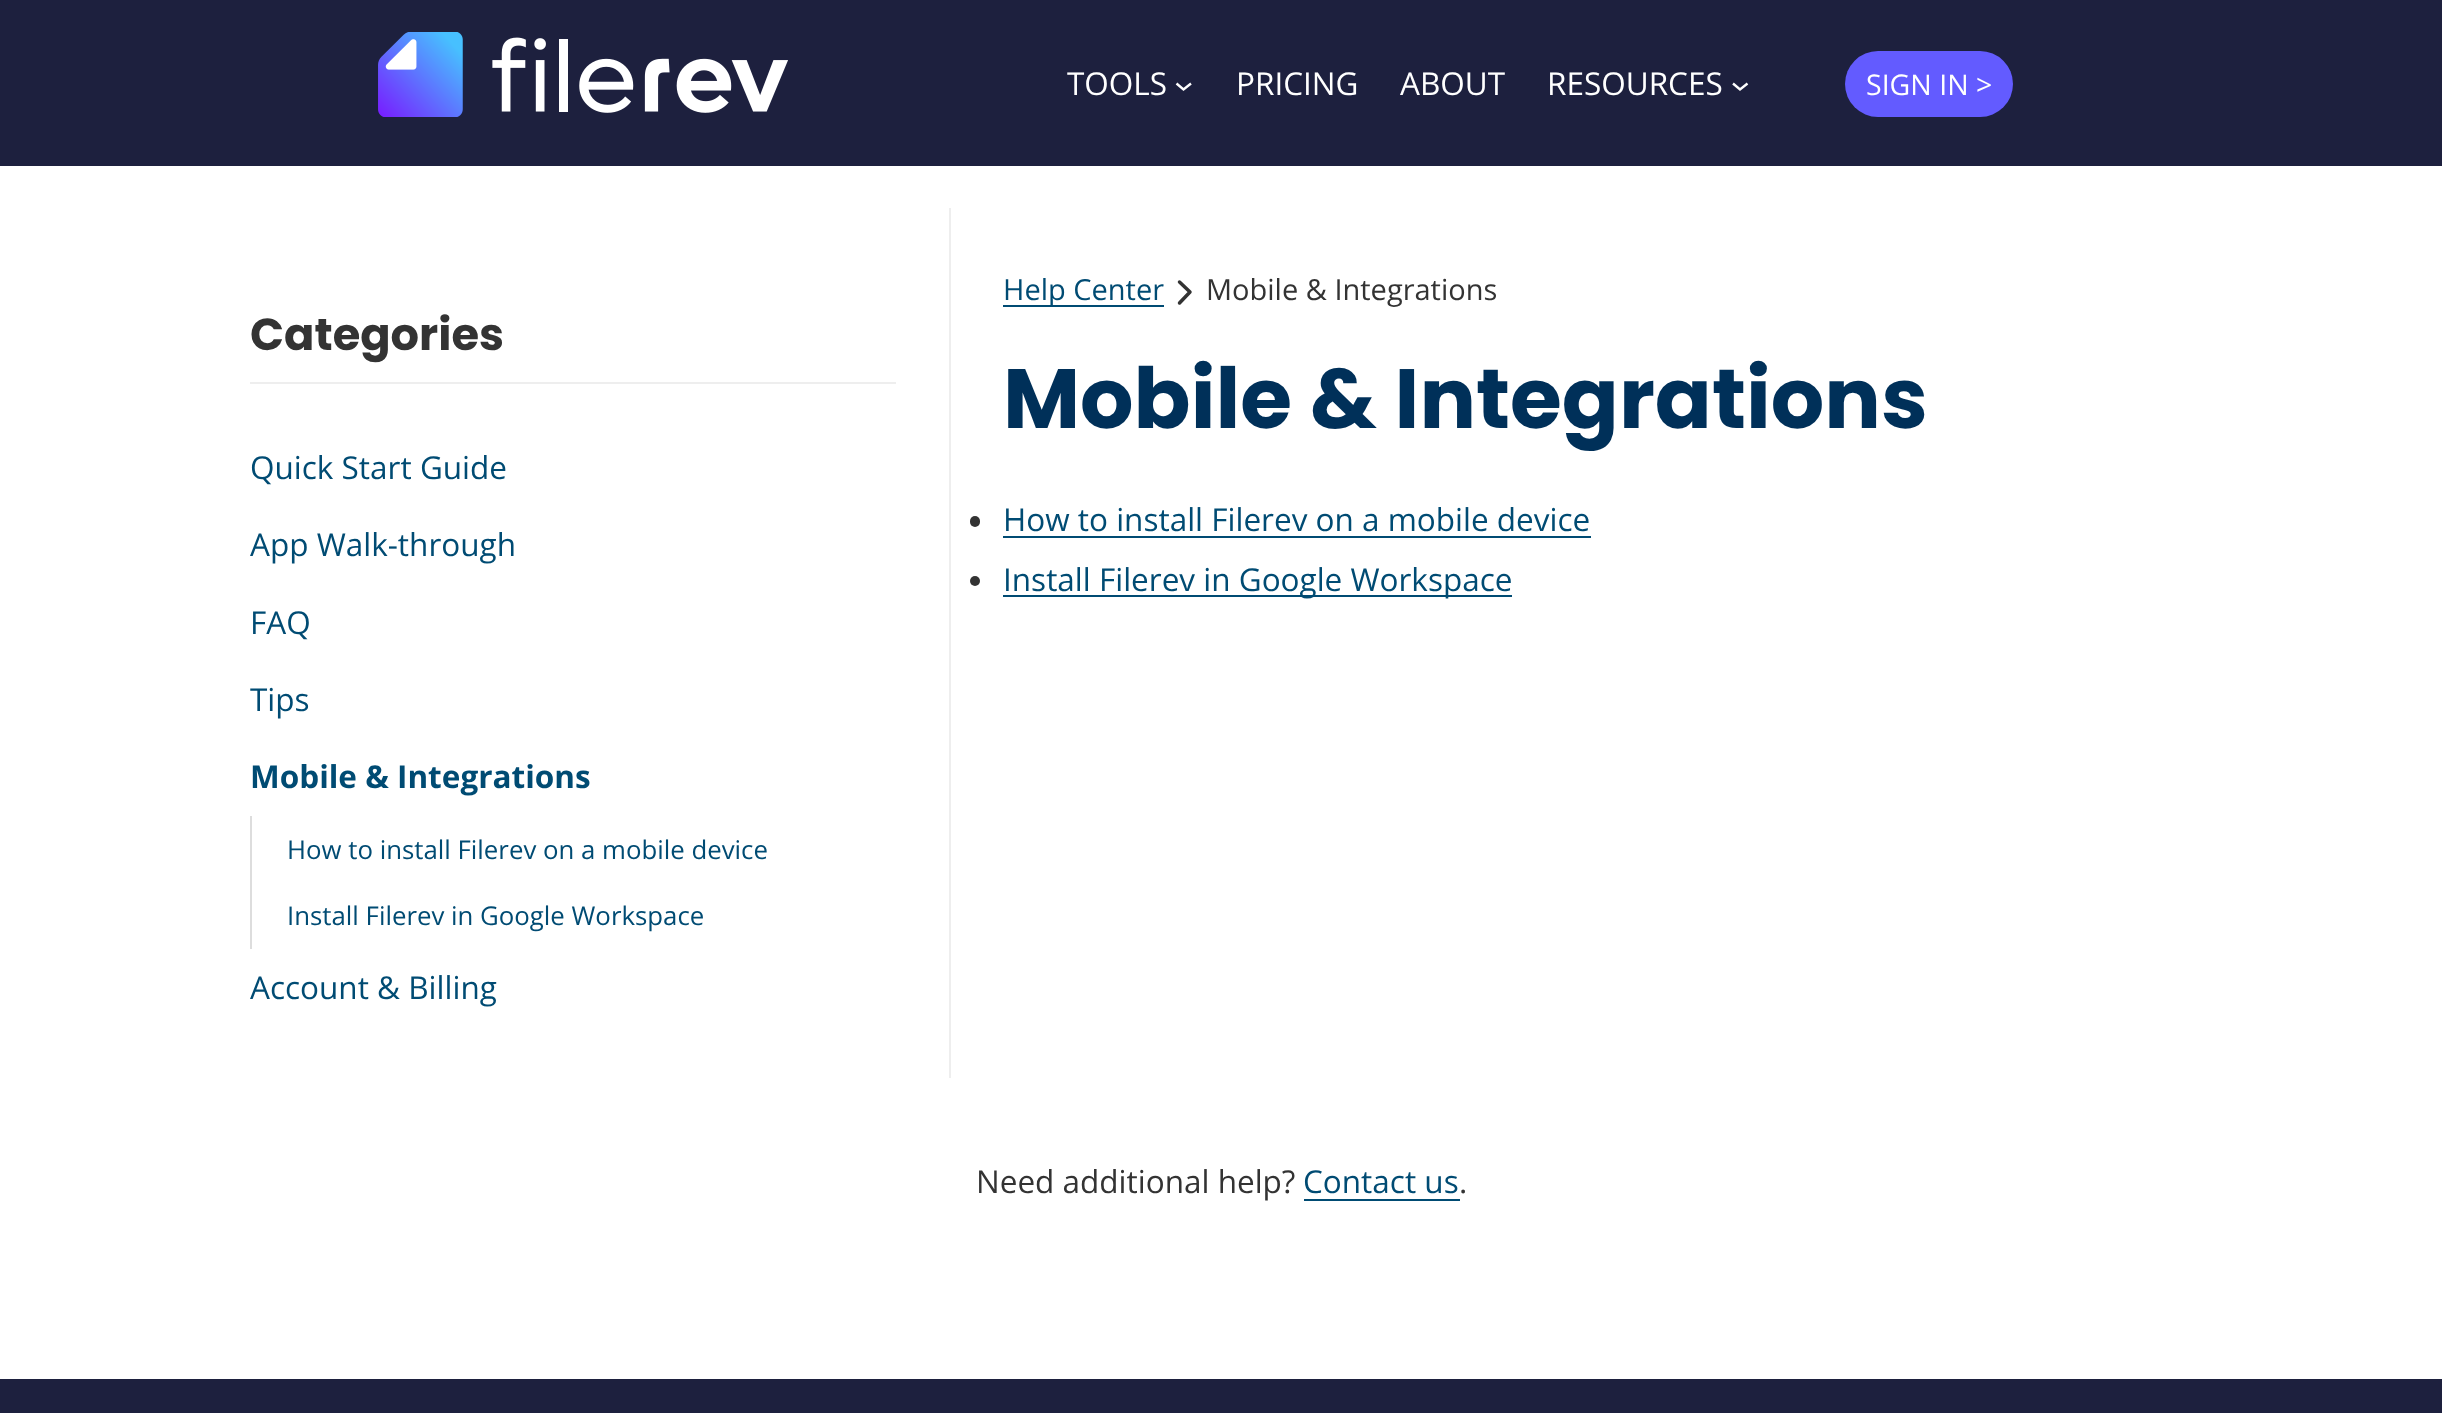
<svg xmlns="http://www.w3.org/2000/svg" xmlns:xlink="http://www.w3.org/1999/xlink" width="2442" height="1413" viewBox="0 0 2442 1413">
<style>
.cls-1{font:31.5px Open Sans;fill:#ffffff}
.cls-2{font:28.5px Open Sans;fill:#ffffff}
.cls-3{font:bold 44.75px Poppins;fill:#333333}
.cls-4{font:31.5px Open Sans;fill:#004b73}
.cls-5{font:bold 31.5px Open Sans;fill:#004b73}
.cls-6{font:25.8px Open Sans;fill:#004b73}
.cls-7{font:29px Open Sans;fill:#004b73}
.cls-8{font:29px Open Sans;fill:#333333}
.cls-9{font:bold 84px Poppins;fill:#003059}
.cls-10{font:31.5px Open Sans;fill:#333333}
</style>
<rect width="100%" height="100%" fill="#ffffff"/>
<rect fill="#1d203e" x="0" y="0" width="2442" height="166"/>
<image xlink:href="image0.png" x="378" y="32" width="410" height="85"/>
<path fill="none" stroke="#ffffff" stroke-width="2.4" d="M1176.5 83.5L1183.5 89.5L1191 83.5"/>
<path fill="none" stroke="#ffffff" stroke-width="2.4" d="M1733 83.5L1740 89.5L1747.5 83.5"/>
<rect fill="#635bff" x="1845" y="51" width="168" height="66" rx="33"/>
<rect fill="#eeeeee" x="949" y="208" width="2" height="870"/>
<rect fill="#eeeeee" x="250" y="382" width="646" height="2"/>
<rect fill="#dddddd" x="250" y="816" width="2" height="133"/>
<rect fill="#004b73" x="1003" y="305" width="161" height="2"/>
<path fill="none" stroke="#333333" stroke-width="3.5" stroke-linecap="round" stroke-linejoin="round" d="M1179.5 303L1190 292L1179.5 282"/>
<rect fill="#333333" x="970" y="516" width="10" height="11" rx="5"/>
<rect fill="#004b73" x="1003" y="536" width="588" height="2"/>
<circle fill="#333333" cx="975" cy="581" r="5"/>
<rect fill="#004b73" x="1003" y="595" width="509" height="2"/>
<rect fill="#004b73" x="1304" y="1199" width="156" height="2"/>
<rect fill="#1d203e" x="0" y="1379" width="2442" height="34"/>
<text class="cls-1" x="1067" y="95">TOOLS</text>
<text class="cls-1" x="1236" y="95">PRICING</text>
<text class="cls-1" x="1400" y="95">ABOUT</text>
<text class="cls-1" x="1547" y="95">RESOURCES</text>
<text class="cls-2" x="1866" y="95">SIGN IN &gt;</text>
<text class="cls-3" x="250" y="350">Categories</text>
<text class="cls-4" x="250" y="479">Quick Start Guide</text>
<text class="cls-4" x="250" y="556">App Walk-through</text>
<text class="cls-4" x="250" y="634">FAQ</text>
<text class="cls-4" x="250" y="711">Tips</text>
<text class="cls-5" x="250" y="788">Mobile &amp; Integrations</text>
<text class="cls-6" x="287" y="859">How to install Filerev on a mobile device</text>
<text class="cls-6" x="287" y="925">Install Filerev in Google Workspace</text>
<text class="cls-4" x="250" y="999">Account &amp; Billing</text>
<text class="cls-7" x="1003" y="300">Help Center</text>
<text class="cls-8" x="1206" y="300">Mobile &amp; Integrations</text>
<text class="cls-9" x="1003" y="428">Mobile &amp; Integrations</text>
<text class="cls-4"><tspan x="1003" y="531">How to install Filerev on a mobile device</tspan><tspan x="1003" y="591">Install Filerev in Google Workspace</tspan></text>
<text class="cls-10" x="976" y="1193">Need additional help?</text>
<text class="cls-4" x="1303" y="1193">Contact us</text>
<text class="cls-10" x="1459" y="1193">.</text>
</svg>
